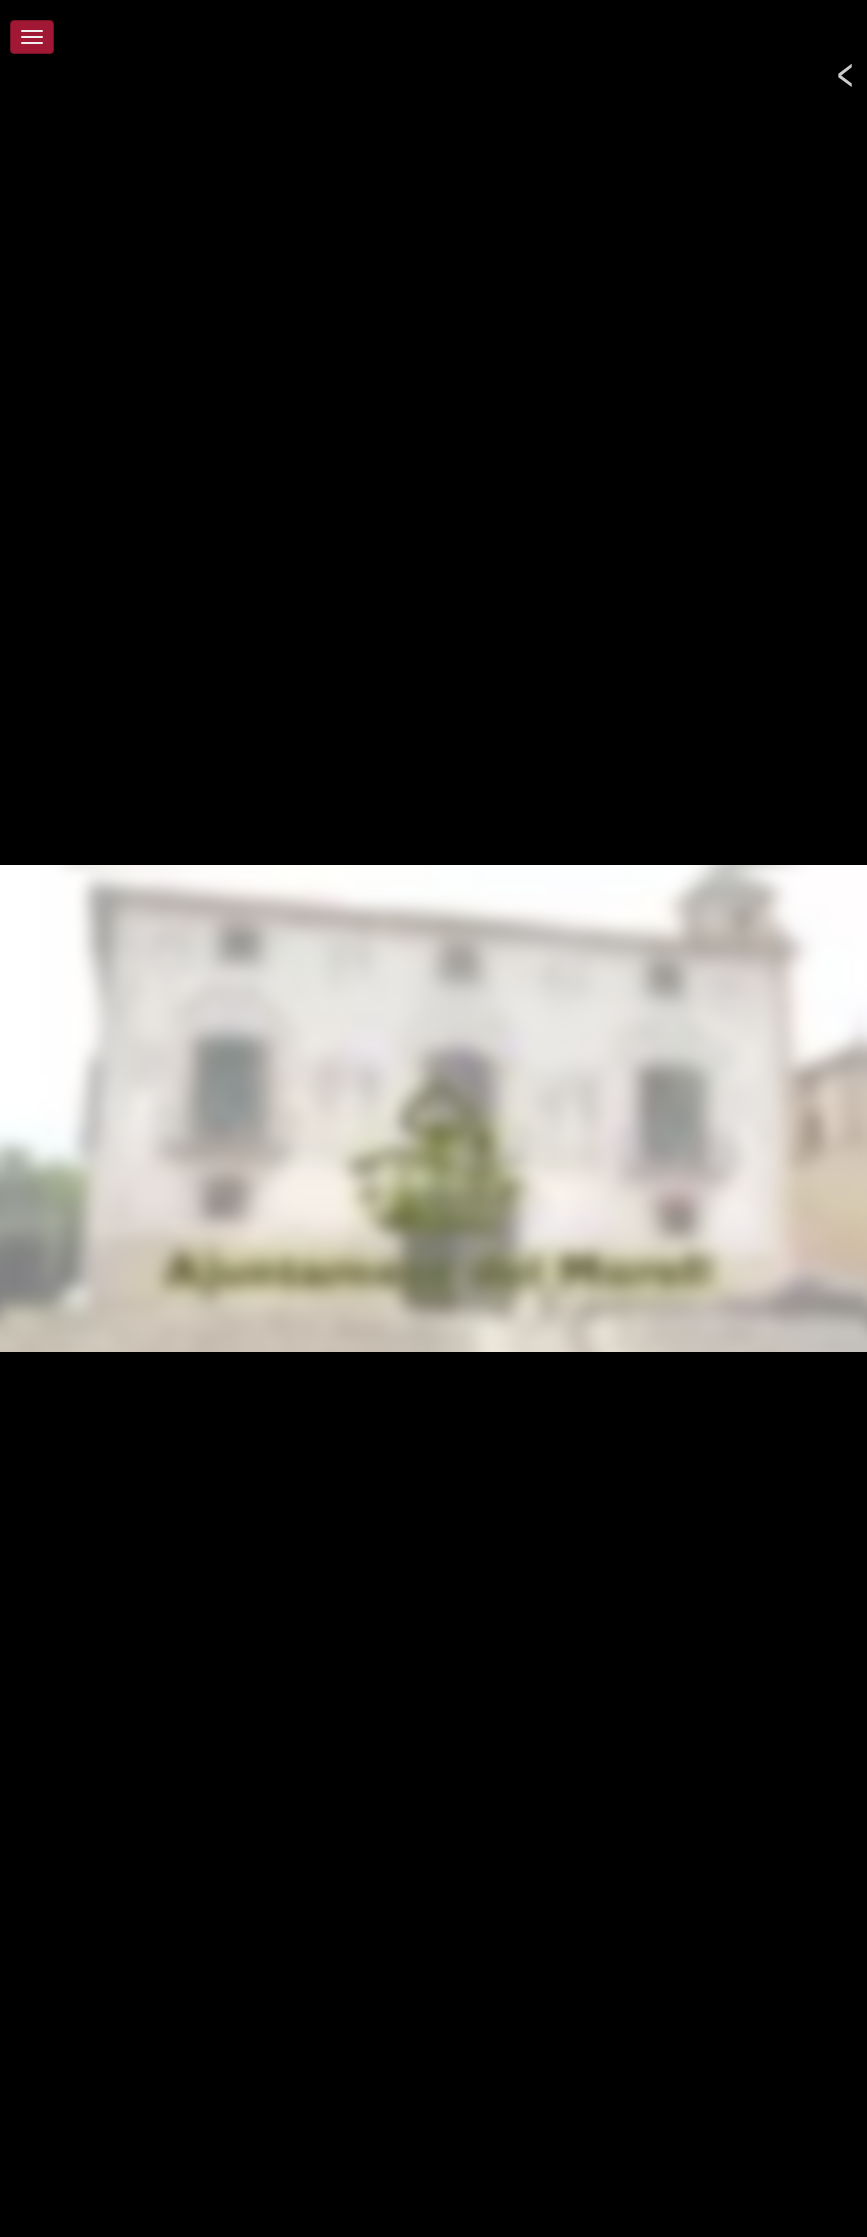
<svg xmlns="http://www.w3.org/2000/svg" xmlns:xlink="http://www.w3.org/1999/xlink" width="867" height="2237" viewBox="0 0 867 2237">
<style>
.cls-1{font:300 48px Oswald;fill:#cccccc}
</style>
<rect width="100%" height="100%" fill="#000000"/>
<rect fill="#a01834" stroke="#7a1227" x="10.5" y="20.5" width="43" height="33" rx="3.5"/>
<rect fill="#f0f0f0" x="21" y="30" width="22" height="2" rx="1"/>
<rect fill="#f0f0f0" x="21" y="36" width="22" height="2" rx="1"/>
<rect fill="#f0f0f0" x="21" y="42" width="22" height="2" rx="1"/>
<image xlink:href="image0.png" x="0" y="865" width="867" height="487"/>
<text class="cls-1" x="837" y="90">&lt;</text>
</svg>
